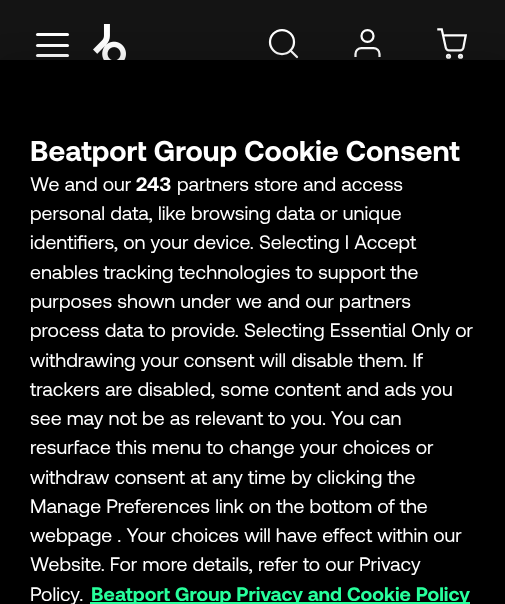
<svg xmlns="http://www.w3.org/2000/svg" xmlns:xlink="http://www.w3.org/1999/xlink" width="505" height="604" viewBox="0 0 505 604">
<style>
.cls-1{font:bold 28.75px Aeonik;fill:#ffffff}
.cls-2{font:19.5px Aeonik;fill:#ffffff}
.cls-3{font:bold 19.5px Aeonik;fill:#ffffff}
.cls-4{font:bold 19.5px Aeonik;fill:#27ff9c}
</style>
<rect width="100%" height="100%" fill="#141414"/>
<rect fill="#ffffff" x="36" y="44" width="33" height="3" rx="1.5"/>
<rect fill="#ffffff" x="36" y="33" width="33" height="3" rx="1.5"/>
<rect fill="#ffffff" x="36" y="54" width="33" height="3" rx="1.5"/>
<image xlink:href="image0.png" x="93" y="24" width="33" height="36"/>
<image xlink:href="image1.png" x="268" y="29" width="31" height="30"/>
<image xlink:href="image2.png" x="354" y="29" width="27" height="28"/>
<image xlink:href="image3.png" x="437" y="28" width="30" height="31"/>
<rect fill="#000000" fill-opacity="0.2" filter="blur(13.5px)" x="0" y="60" width="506" height="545"/>
<rect fill="#000000" x="0" y="60" width="505" height="544"/>
<rect fill="#27ff9c" x="90" y="602" width="380" height="2"/>
<text class="cls-1" x="30" y="161">Beatport Group Cookie Consent</text>
<text class="cls-2" x="30" y="191">We and our</text>
<text class="cls-3" x="136" y="191">243</text>
<text class="cls-2" x="177" y="191">partners store and access</text>
<text class="cls-2"><tspan x="30" y="220">personal data, like browsing data or unique</tspan><tspan x="30" y="249">identifiers, on your device. Selecting I Accept</tspan><tspan x="30" y="279">enables tracking technologies to support the</tspan><tspan x="30" y="308">purposes shown under we and our partners</tspan><tspan x="30" y="337">process data to provide. Selecting Essential Only or</tspan><tspan x="30" y="367">withdrawing your consent will disable them. If</tspan><tspan x="30" y="396">trackers are disabled, some content and ads you</tspan><tspan x="30" y="425">see may not be as relevant to you. You can</tspan><tspan x="30" y="454">resurface this menu to change your choices or</tspan><tspan x="30" y="484">withdraw consent at any time by clicking the</tspan><tspan x="30" y="513">Manage Preferences link on the bottom of the</tspan><tspan x="30" y="542">webpage . Your choices will have effect within our</tspan><tspan x="30" y="571">Website. For more details, refer to our Privacy</tspan><tspan x="30" y="601">Policy.</tspan></text>
<text class="cls-4" x="91" y="601">Beatport Group Privacy and Cookie Policy</text>
</svg>
